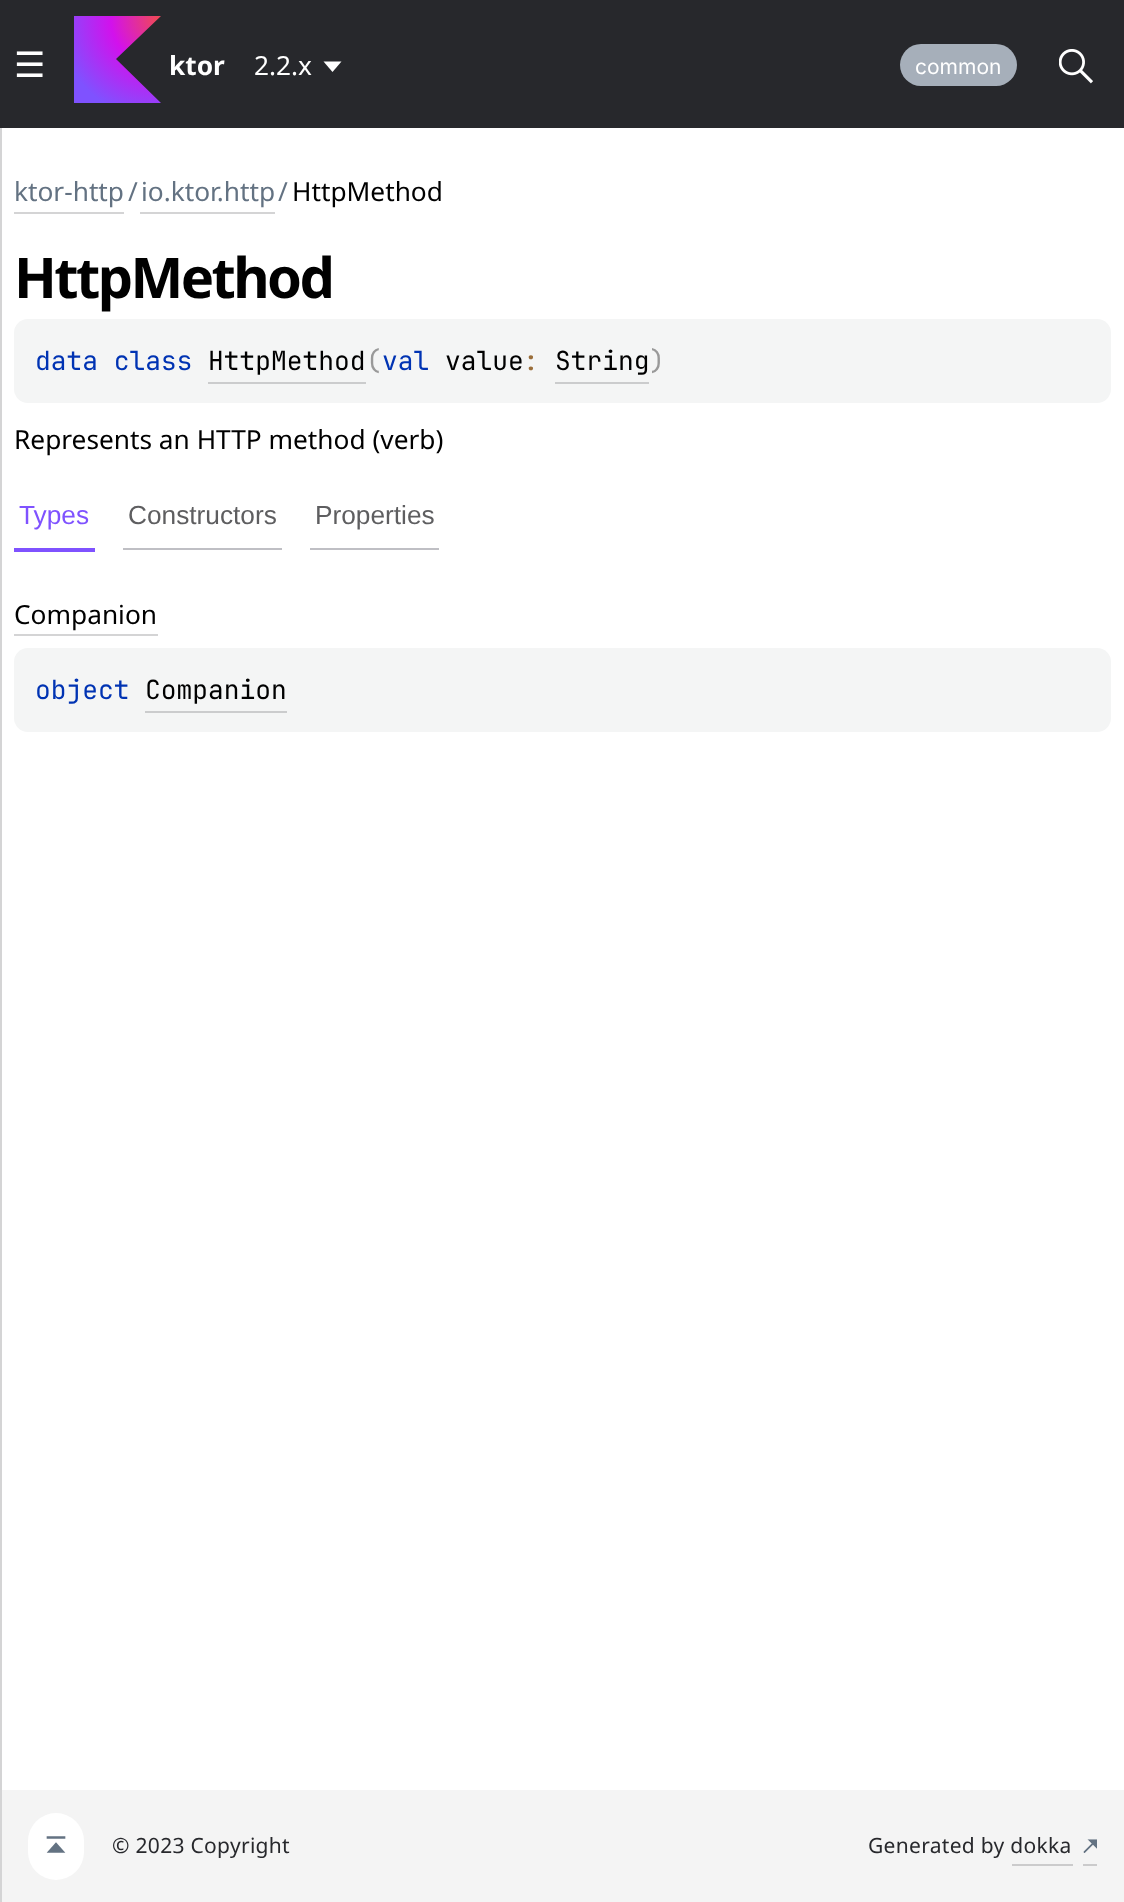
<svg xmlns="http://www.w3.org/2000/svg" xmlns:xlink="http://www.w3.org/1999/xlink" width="1124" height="1902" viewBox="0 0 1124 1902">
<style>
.cls-1{font:35px DejaVu Sans;fill:#ffffff}
.cls-2{font:bold 26.25px Noto Sans;fill:#ffffff}
.cls-3{font:26.25px Noto Sans;fill:#ffffff}
.cls-4{font:21px Inter;fill:#ffffff}
.cls-5{font:26.25px Noto Sans;fill:#637282}
.cls-6{font:26.25px Noto Sans;fill:#000000}
.cls-7{font:bold 56px Noto Sans;letter-spacing:-2.6px;fill:#000000}
.cls-8{font:26.25px JetBrains Mono;fill:#0033b3}
.cls-9{font:26.25px JetBrains Mono;fill:#000000}
.cls-10{font:26.25px JetBrains Mono;fill:#999999}
.cls-11{font:26.25px JetBrains Mono;fill:#9a6e3a}
.cls-12{font:26.25px Liberation Sans;fill:#7f52ff}
.cls-13{font:26.25px Liberation Sans;fill:#5e5e60}
.cls-14{font:21px Noto Sans;letter-spacing:0.3px;fill:#27282c}
</style>
<defs>
<radialGradient id="g1" gradientUnits="userSpaceOnUse" cx="158" cy="19" r="100"><stop offset="0" stop-color="#ef4857"/><stop offset="0.47" stop-color="#d211ec"/><stop offset="1" stop-color="#7f52ff"/></radialGradient>
</defs>
<rect width="100%" height="100%" fill="#ffffff"/>
<rect fill="#27282c" x="0" y="0" width="1124" height="128"/>
<path fill="url(#g1)" d="M161 103H74V16H161L116 59Z"/>
<path fill="#ffffff" d="M332.5 72L323.5 61.5H341.5Z"/>
<rect fill="#a6afba" x="900" y="44" width="117" height="42" rx="21"/>
<image xlink:href="image0.png" x="1059" y="49" width="34" height="35"/>
<rect fill="#d4d4d5" x="0" y="128" width="2" height="1774"/>
<rect fill="#d4d4d5" x="14" y="212" width="110" height="2"/>
<rect fill="#d4d4d5" x="140" y="212" width="135" height="2"/>
<rect fill="#f4f5f5" x="14" y="319" width="1097" height="84" rx="14"/>
<rect fill="#cbcccd" x="208" y="382" width="158" height="2"/>
<rect fill="#cbcccd" x="555" y="382" width="94" height="2"/>
<rect fill="#7f52ff" x="14" y="548" width="81" height="4"/>
<rect fill="#bfbfc4" x="123" y="548" width="159" height="2"/>
<rect fill="#bfbfc4" x="310" y="548" width="129" height="2"/>
<rect fill="#d4d4d5" x="14" y="634" width="144" height="2"/>
<rect fill="#f4f5f5" x="14" y="648" width="1097" height="84" rx="14"/>
<rect fill="#cbcccd" x="145" y="711" width="142" height="2"/>
<rect fill="#f4f4f4" x="2" y="1790" width="1122" height="112"/>
<rect fill="#ffffff" x="28" y="1813" width="56" height="67" rx="28"/>
<image xlink:href="image1.png" x="46" y="1836" width="20" height="17"/>
<image xlink:href="image2.png" x="1083" y="1839" width="14" height="14"/>
<rect fill="#cbcbcc" x="1012" y="1864" width="61" height="2"/>
<rect fill="#cbcbcc" x="1083" y="1864" width="14" height="2"/>
<text class="cls-1" x="14" y="77">☰</text>
<text class="cls-2" x="169" y="75">ktor</text>
<text class="cls-3" x="254" y="75">2.2.x</text>
<text class="cls-4" x="915" y="74">common</text>
<text class="cls-5" x="14" y="201">ktor-http</text>
<text class="cls-5" x="128" y="201">/</text>
<text class="cls-5" x="141" y="201">io.ktor.http</text>
<text class="cls-5" x="278" y="201">/</text>
<text class="cls-6" x="292" y="201">HttpMethod</text>
<text class="cls-7" x="14" y="298">HttpMethod</text>
<text class="cls-8" x="35" y="370">data class</text>
<text class="cls-9" x="208" y="370">HttpMethod</text>
<text class="cls-10" x="366" y="370">(</text>
<text class="cls-8" x="382" y="370">val</text>
<text class="cls-9" x="445" y="370">value</text>
<text class="cls-11" x="523" y="370">:</text>
<text class="cls-9" x="555" y="370">String</text>
<text class="cls-10" x="649" y="370">)</text>
<text class="cls-6" x="14" y="449">Represents an HTTP method (verb)</text>
<text class="cls-12" x="19" y="524">Types</text>
<text class="cls-13" x="128" y="524">Constructors</text>
<text class="cls-13" x="315" y="524">Properties</text>
<text class="cls-6" x="14" y="624">Companion</text>
<text class="cls-8" x="35" y="699">object</text>
<text class="cls-9" x="145" y="699">Companion</text>
<text class="cls-14" x="112" y="1853">© 2023 Copyright</text>
<text class="cls-14" x="868" y="1853">Generated by dokka</text>
</svg>
